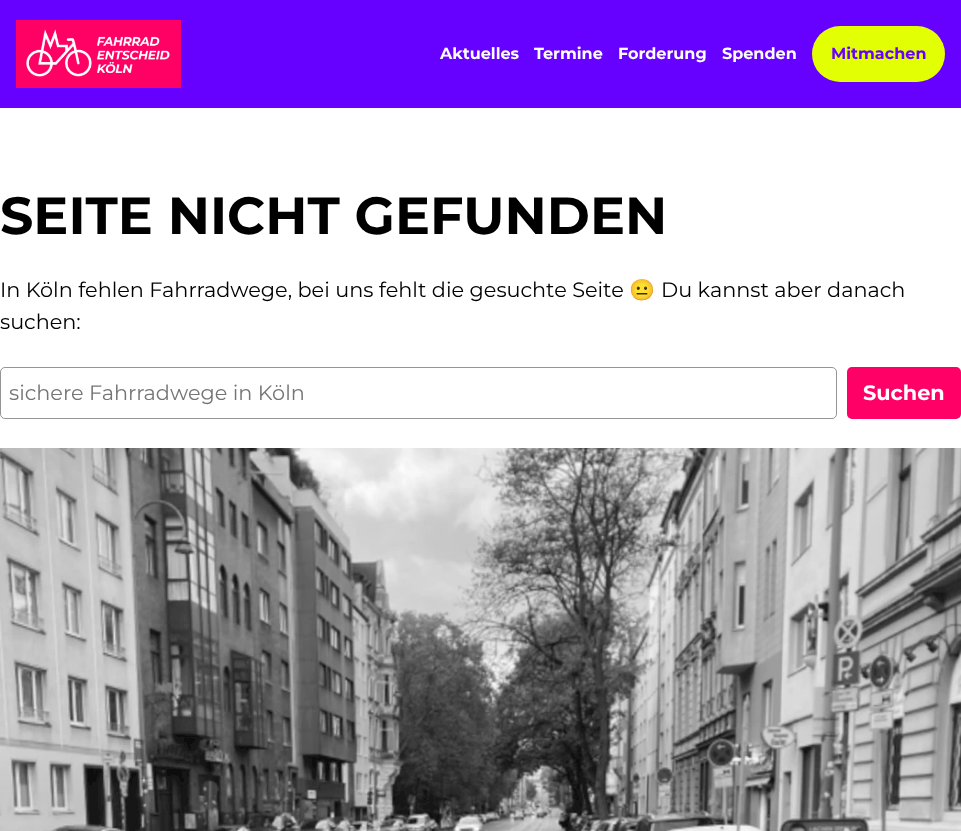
<svg xmlns="http://www.w3.org/2000/svg" xmlns:xlink="http://www.w3.org/1999/xlink" width="961" height="831" viewBox="0 0 961 831">
<style>
.cls-1{font:bold 16px Montserrat;fill:#ffffff}
.cls-2{font:bold 16px Montserrat;fill:#6600ff}
.cls-3{font:bold 52.25px Montserrat;fill:#000000}
.cls-4{font:20.8px Montserrat;fill:#000000}
.cls-5{font:20.8px Noto Color Emoji;fill:#000000}
.cls-6{font:20.8px Montserrat;fill:#757575}
.cls-7{font:bold 20.8px Montserrat;fill:#ffffff}
</style>
<rect width="100%" height="100%" fill="#ffffff"/>
<rect fill="#6600ff" x="0" y="0" width="961" height="108"/>
<image xlink:href="image0.png" x="16" y="20" width="165" height="68"/>
<rect fill="#e3ff04" x="812" y="26" width="133" height="56" rx="28"/>
<rect fill="none" stroke="#949494" x="0.5" y="367.5" width="836" height="51" rx="4.5"/>
<rect fill="#ff0066" x="847" y="367" width="114" height="52" rx="5"/>
<image xlink:href="image1.png" x="0" y="448" width="961" height="383"/>
<text class="cls-1" x="440" y="59">Aktuelles</text>
<text class="cls-1" x="534" y="59">Termine</text>
<text class="cls-1" x="618" y="59">Forderung</text>
<text class="cls-1" x="722" y="59">Spenden</text>
<text class="cls-2" x="831" y="59">Mitmachen</text>
<text class="cls-3" x="0" y="234">SEITE NICHT GEFUNDEN</text>
<text class="cls-4" x="0" y="297">In Köln fehlen Fahrradwege, bei uns fehlt die gesuchte Seite</text>
<text class="cls-5" x="629" y="297">😐</text>
<text class="cls-4" x="661" y="297">Du kannst aber danach</text>
<text class="cls-4" x="0" y="329">suchen:</text>
<text class="cls-6" x="9" y="400">sichere Fahrradwege in Köln</text>
<text class="cls-7" x="863" y="400">Suchen</text>
</svg>
